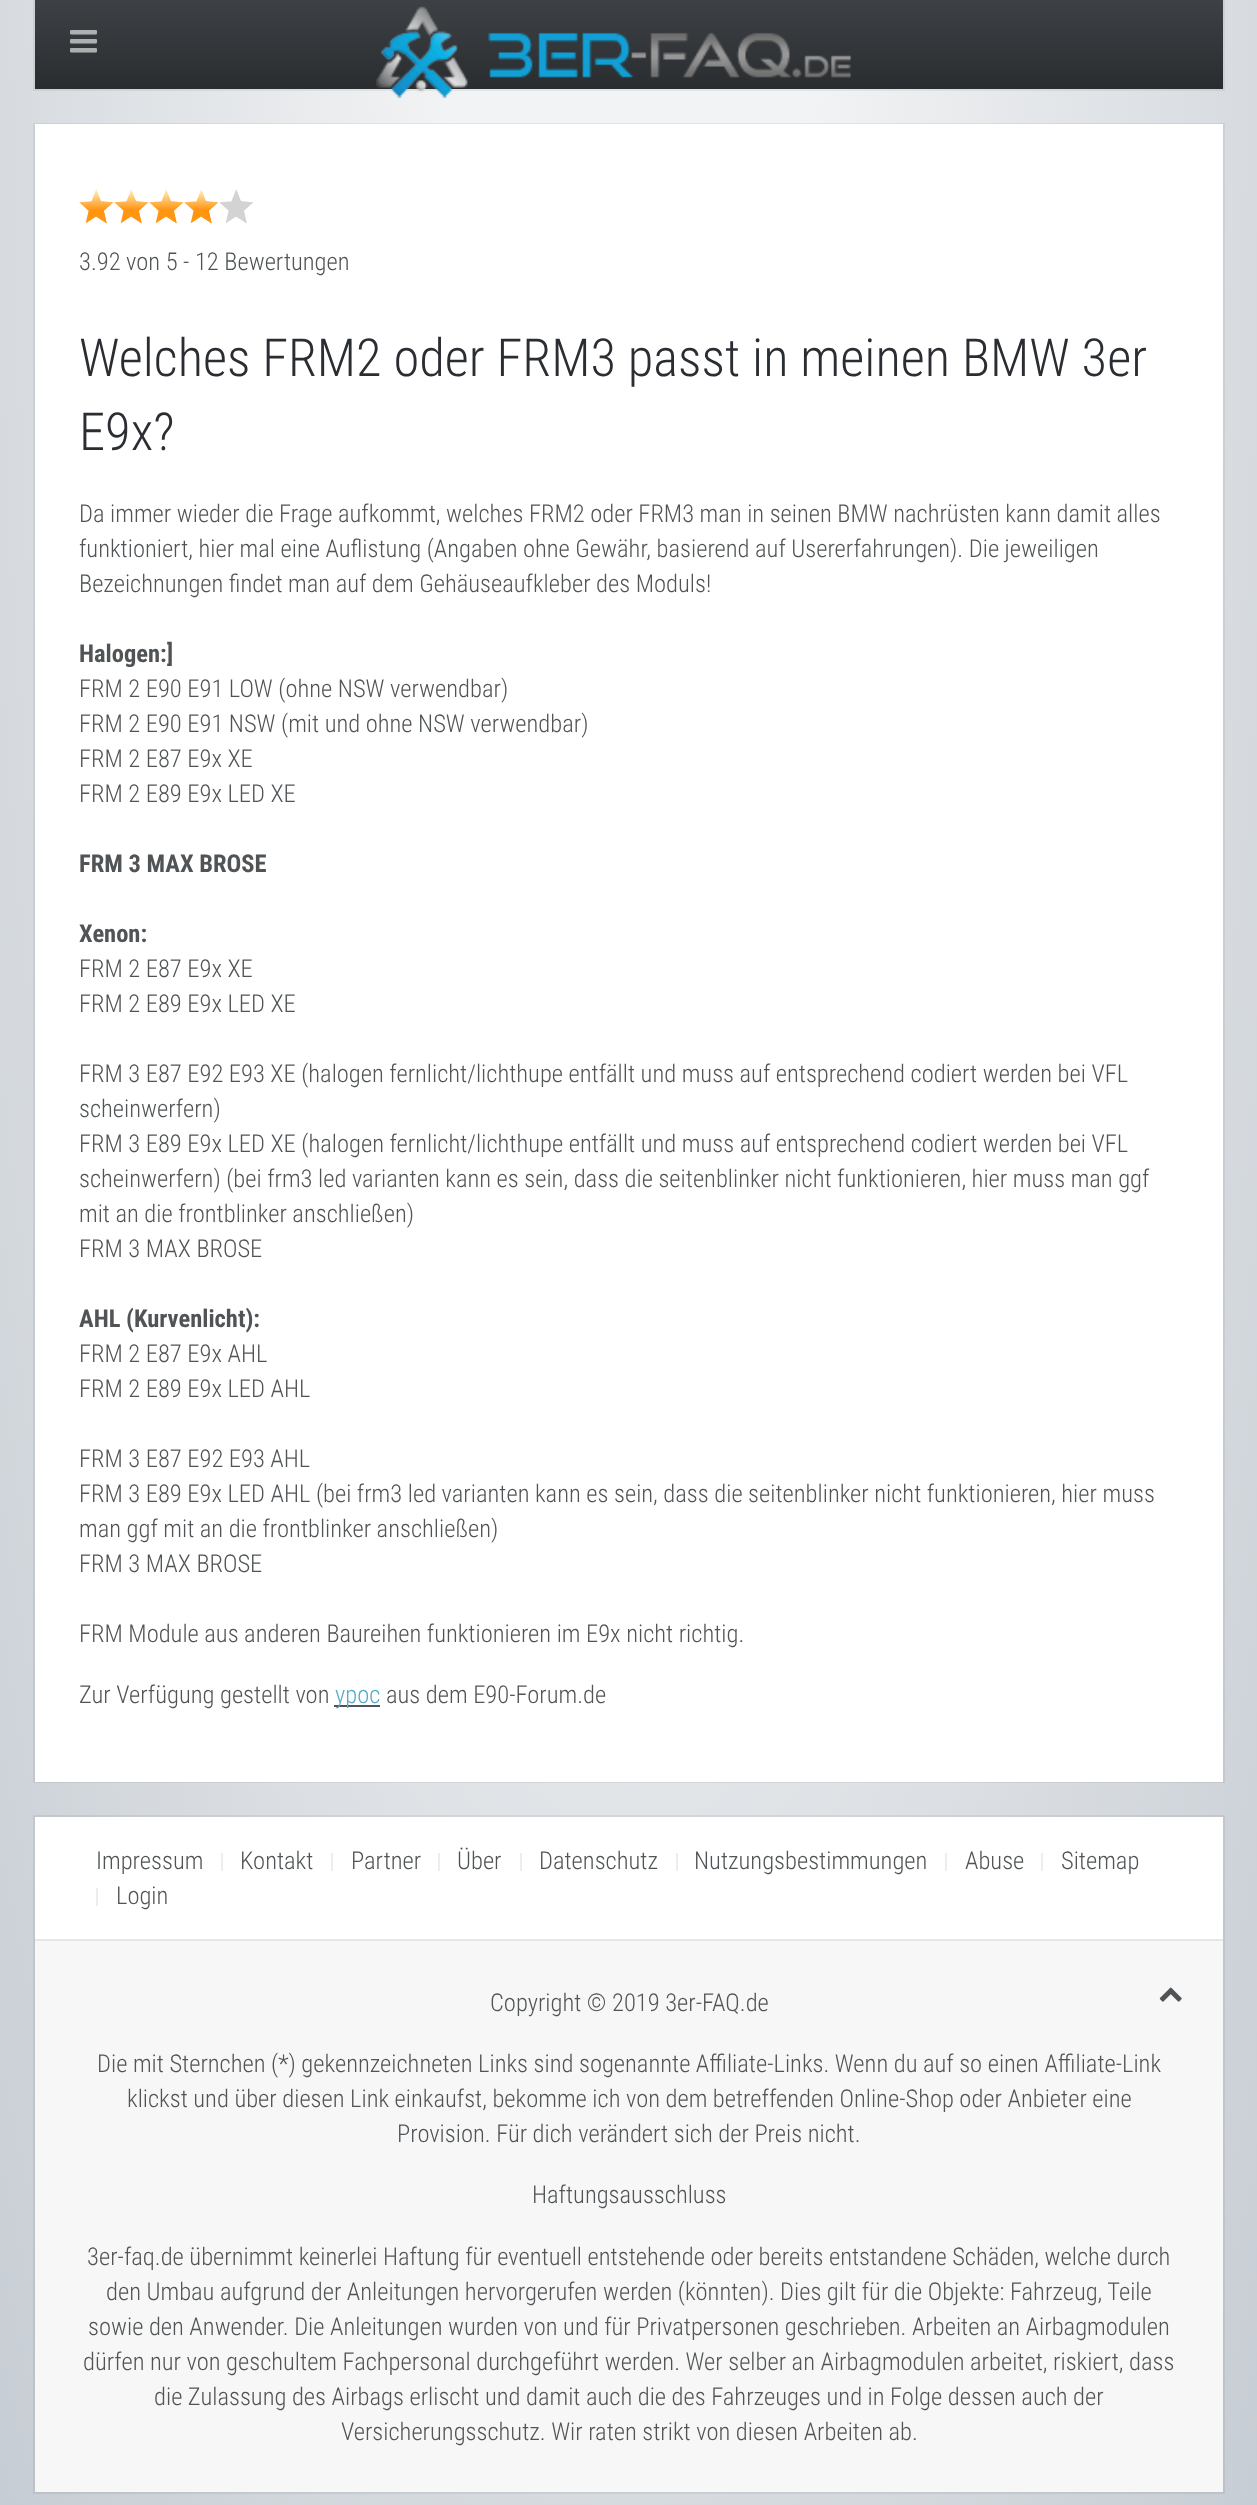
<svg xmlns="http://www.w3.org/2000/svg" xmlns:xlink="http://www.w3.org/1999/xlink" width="1257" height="2505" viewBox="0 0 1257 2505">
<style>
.cls-1{font:300 24.5px Roboto Condensed;fill:#515456}
.cls-2{font:300 52.5px Roboto Condensed;fill:#2a2d31}
.cls-3{font:bold 24.5px Roboto Condensed;fill:#515456}
.cls-4{font:300 24.5px Roboto Condensed;fill:#54aacb}
</style>
<defs>
<radialGradient id="g1" gradientUnits="userSpaceOnUse" cx="0" cy="0" r="1" gradientTransform="matrix(890 0 0 3544 629 0)"><stop offset="0.2" stop-color="#f2f3f4"/><stop offset="1" stop-color="#c7cdd4"/></radialGradient>
<linearGradient id="g2" gradientUnits="userSpaceOnUse" x1="629" y1="-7" x2="629" y2="89"><stop offset="0" stop-color="#3f4246"/><stop offset="1" stop-color="#2a2d30"/></linearGradient>
</defs>
<rect width="100%" height="100%" fill="#ffffff"/>
<rect fill="url(#g1)" x="0" y="0" width="1257" height="2505"/>
<rect fill="none" stroke="#000000" stroke-opacity="0.06" stroke-width="2" x="34" y="-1" width="1190" height="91"/>
<rect fill="url(#g2)" x="35" y="0" width="1188" height="89"/>
<image xlink:href="image0.png" x="70" y="30" width="27" height="23"/>
<image xlink:href="image1.png" x="376" y="6" width="476" height="92"/>
<rect fill="none" stroke="#000000" stroke-opacity="0.06" stroke-width="2" x="34" y="124" width="1190" height="1658"/>
<rect fill="#ffffff" x="35" y="124" width="1188" height="1658"/>
<image xlink:href="image2.png" x="79" y="189" width="35" height="35"/>
<image xlink:href="image2.png" x="114" y="189" width="35" height="35"/>
<image xlink:href="image2.png" x="149" y="189" width="35" height="35"/>
<image xlink:href="image2.png" x="184" y="189" width="35" height="35"/>
<image xlink:href="image3.png" x="219" y="189" width="34" height="35"/>
<rect fill="#515456" x="334" y="1705" width="46" height="2"/>
<rect fill="none" stroke="#000000" stroke-opacity="0.06" stroke-width="2" x="34" y="1816" width="1190" height="677"/>
<rect fill="#ffffff" x="35" y="1817" width="1188" height="122"/>
<rect fill="#ededed" x="221" y="1853" width="2" height="18"/>
<rect fill="#ededed" x="331" y="1853" width="2" height="18"/>
<rect fill="#ededed" x="438" y="1853" width="2" height="18"/>
<rect fill="#ededed" x="520" y="1853" width="2" height="18"/>
<rect fill="#ededed" x="676" y="1853" width="2" height="18"/>
<rect fill="#ededed" x="945" y="1853" width="2" height="18"/>
<rect fill="#ededed" x="1041" y="1853" width="2" height="18"/>
<rect fill="#ededed" x="96" y="1888" width="2" height="18"/>
<rect fill="#f7f7f7" x="35" y="1941" width="1188" height="551"/>
<rect fill="#e6e6e6" x="35" y="1939" width="1188" height="2"/>
<image xlink:href="image4.png" x="1159" y="1987" width="23" height="15"/>
<text class="cls-1" x="79" y="270">3.92 von 5 - 12 Bewertungen</text>
<text class="cls-2"><tspan x="79" y="376">Welches FRM2 oder FRM3 passt in meinen BMW 3er</tspan><tspan x="79" y="450">E9x?</tspan></text>
<text class="cls-1"><tspan x="79" y="522">Da immer wieder die Frage aufkommt, welches FRM2 oder FRM3 man in seinen BMW nachrüsten kann damit alles</tspan><tspan x="79" y="557">funktioniert, hier mal eine Auflistung (Angaben ohne Gewähr, basierend auf Usererfahrungen). Die jeweiligen</tspan><tspan x="79" y="592">Bezeichnungen findet man auf dem Gehäuseaufkleber des Moduls!</tspan></text>
<text class="cls-3" x="79" y="662">Halogen:]</text>
<text class="cls-1"><tspan x="79" y="697">FRM 2 E90 E91 LOW (ohne NSW verwendbar)</tspan><tspan x="79" y="732">FRM 2 E90 E91 NSW (mit und ohne NSW verwendbar)</tspan><tspan x="79" y="767">FRM 2 E87 E9x XE</tspan><tspan x="79" y="802">FRM 2 E89 E9x LED XE</tspan></text>
<text class="cls-3" x="79" y="872">FRM 3 MAX BROSE</text>
<text class="cls-3" x="79" y="942">Xenon:</text>
<text class="cls-1"><tspan x="79" y="977">FRM 2 E87 E9x XE</tspan><tspan x="79" y="1012">FRM 2 E89 E9x LED XE</tspan></text>
<text class="cls-1"><tspan x="79" y="1082">FRM 3 E87 E92 E93 XE (halogen fernlicht/lichthupe entfällt und muss auf entsprechend codiert werden bei VFL</tspan><tspan x="79" y="1117">scheinwerfern)</tspan><tspan x="79" y="1152">FRM 3 E89 E9x LED XE (halogen fernlicht/lichthupe entfällt und muss auf entsprechend codiert werden bei VFL</tspan><tspan x="79" y="1187">scheinwerfern) (bei frm3 led varianten kann es sein, dass die seitenblinker nicht funktionieren, hier muss man ggf</tspan><tspan x="79" y="1222">mit an die frontblinker anschließen)</tspan><tspan x="79" y="1257">FRM 3 MAX BROSE</tspan></text>
<text class="cls-3" x="79" y="1327">AHL (Kurvenlicht):</text>
<text class="cls-1"><tspan x="79" y="1362">FRM 2 E87 E9x AHL</tspan><tspan x="79" y="1397">FRM 2 E89 E9x LED AHL</tspan></text>
<text class="cls-1"><tspan x="79" y="1467">FRM 3 E87 E92 E93 AHL</tspan><tspan x="79" y="1502">FRM 3 E89 E9x LED AHL (bei frm3 led varianten kann es sein, dass die seitenblinker nicht funktionieren, hier muss</tspan><tspan x="79" y="1537">man ggf mit an die frontblinker anschließen)</tspan><tspan x="79" y="1572">FRM 3 MAX BROSE</tspan></text>
<text class="cls-1" x="79" y="1642">FRM Module aus anderen Baureihen funktionieren im E9x nicht richtig.</text>
<text class="cls-1" x="79" y="1703">Zur Verfügung gestellt von</text>
<text class="cls-4" x="335" y="1703">ypoc</text>
<text class="cls-1" x="386" y="1703">aus dem E90-Forum.de</text>
<text class="cls-1" x="96" y="1869">Impressum</text>
<text class="cls-1" x="240" y="1869">Kontakt</text>
<text class="cls-1" x="351" y="1869">Partner</text>
<text class="cls-1" x="457" y="1869">Über</text>
<text class="cls-1" x="539" y="1869">Datenschutz</text>
<text class="cls-1" x="694" y="1869">Nutzungsbestimmungen</text>
<text class="cls-1" x="965" y="1869">Abuse</text>
<text class="cls-1" x="1061" y="1869">Sitemap</text>
<text class="cls-1" x="116" y="1904">Login</text>
<text class="cls-1" x="490" y="2011">Copyright © 2019 3er-FAQ.de</text>
<text class="cls-1" x="97" y="2072">Die mit Sternchen (*) gekennzeichneten Links sind sogenannte Affiliate-Links. Wenn du auf so einen Affiliate-Link</text>
<text class="cls-1" x="127" y="2107">klickst und über diesen Link einkaufst, bekomme ich von dem betreffenden Online-Shop oder Anbieter eine</text>
<text class="cls-1" x="397" y="2142">Provision. Für dich verändert sich der Preis nicht.</text>
<text class="cls-1" x="532" y="2203">Haftungsausschluss</text>
<text class="cls-1" x="87" y="2265">3er-faq.de übernimmt keinerlei Haftung für eventuell entstehende oder bereits entstandene Schäden, welche durch</text>
<text class="cls-1" x="106" y="2300">den Umbau aufgrund der Anleitungen hervorgerufen werden (könnten). Dies gilt für die Objekte: Fahrzeug, Teile</text>
<text class="cls-1" x="88" y="2335">sowie den Anwender. Die Anleitungen wurden von und für Privatpersonen geschrieben. Arbeiten an Airbagmodulen</text>
<text class="cls-1" x="83" y="2370">dürfen nur von geschultem Fachpersonal durchgeführt werden. Wer selber an Airbagmodulen arbeitet, riskiert, dass</text>
<text class="cls-1" x="154" y="2405">die Zulassung des Airbags erlischt und damit auch die des Fahrzeuges und in Folge dessen auch der</text>
<text class="cls-1" x="341" y="2440">Versicherungsschutz. Wir raten strikt von diesen Arbeiten ab.</text>
</svg>
